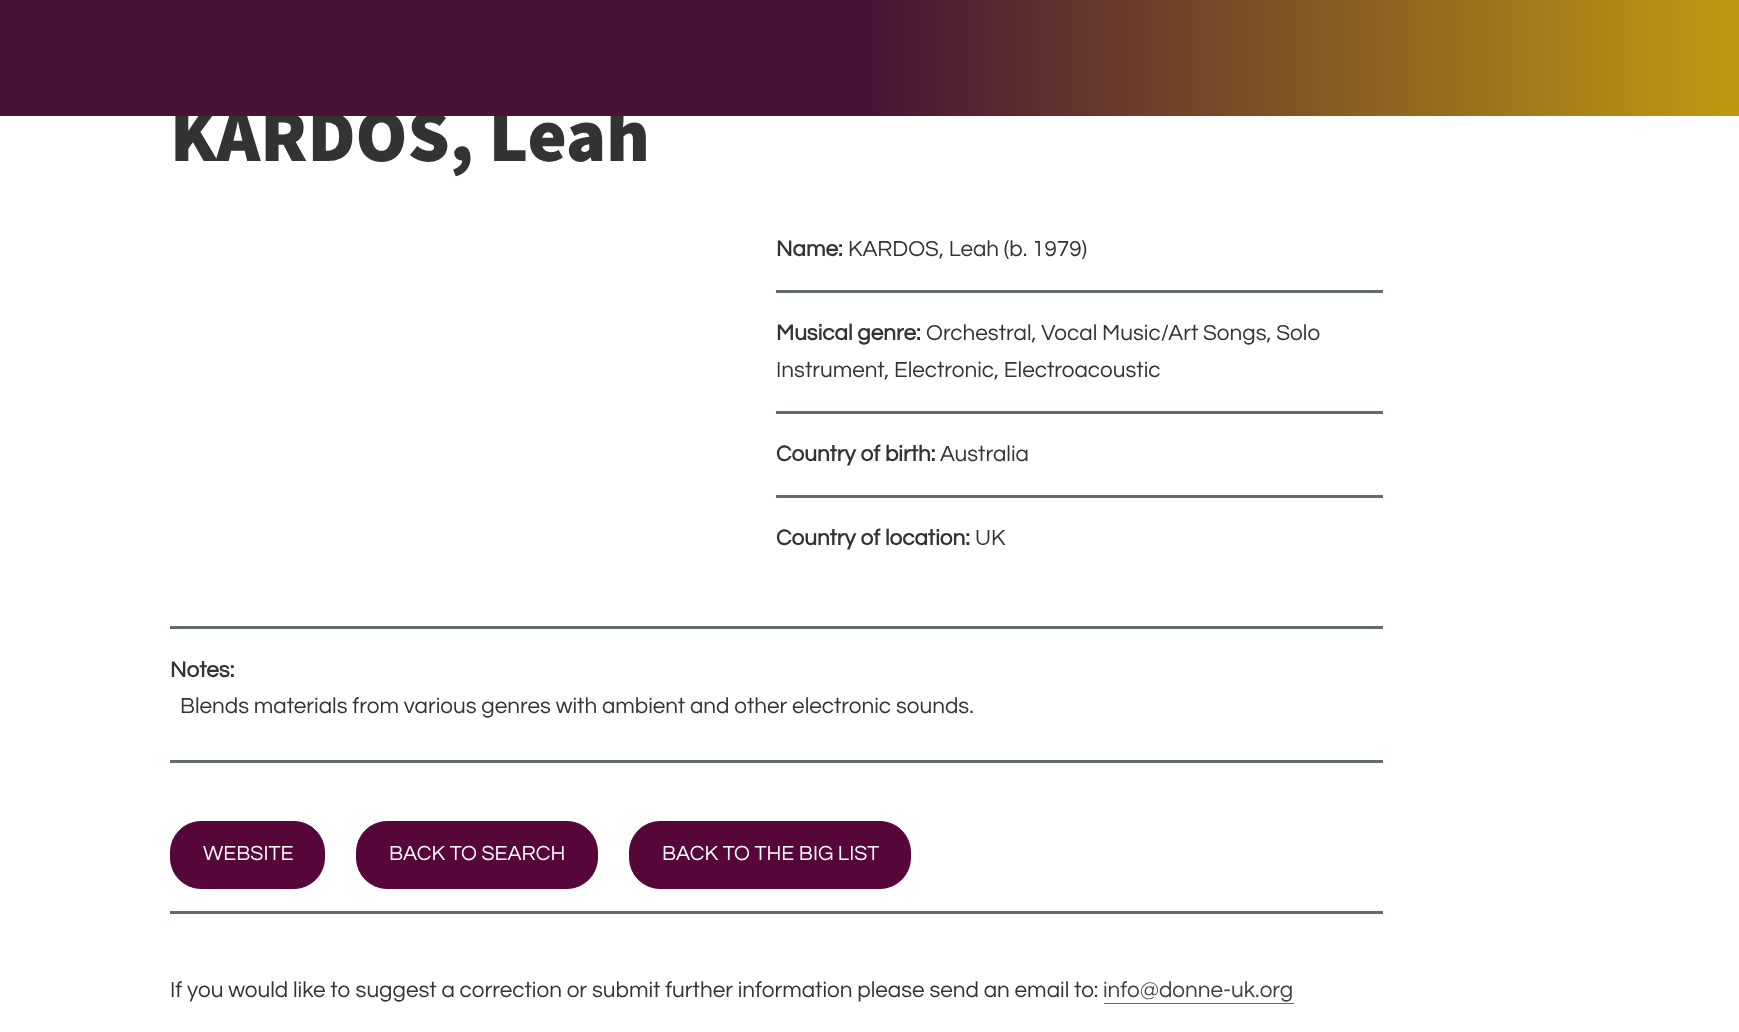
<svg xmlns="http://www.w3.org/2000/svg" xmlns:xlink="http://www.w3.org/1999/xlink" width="1739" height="1032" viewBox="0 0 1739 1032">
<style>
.cls-1{font:900 75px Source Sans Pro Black;fill:#333333}
.cls-2{font:bold 22.5px Questrial;fill:#333333}
.cls-3{font:22.5px Questrial;fill:#333333}
.cls-4{font:21.25px Questrial;fill:#ffffff}
.cls-5{font:22.5px Questrial;fill:#404142}
</style>
<defs>
<linearGradient id="g1" gradientUnits="userSpaceOnUse" x1="0" y1="58" x2="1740" y2="58"><stop offset="0" stop-color="#471436"/><stop offset="0.5" stop-color="#471436"/><stop offset="0.99" stop-color="#bd9811"/><stop offset="1" stop-color="#bd9811"/></linearGradient>
</defs>
<rect width="100%" height="100%" fill="#ffffff"/>
<rect fill="#616e63" x="776" y="290" width="607" height="3"/>
<rect fill="#616e63" x="776" y="411" width="607" height="3"/>
<rect fill="#616e63" x="776" y="495" width="607" height="3"/>
<rect fill="#616e63" x="170" y="626" width="1213" height="3"/>
<rect fill="#616e63" x="170" y="760" width="1213" height="3"/>
<rect fill="#570639" stroke="#570639" x="170.5" y="821.5" width="154" height="67" rx="30.5"/>
<rect fill="#570639" stroke="#570639" x="356.5" y="821.5" width="241" height="67" rx="30.5"/>
<rect fill="#570639" stroke="#570639" x="629.5" y="821.5" width="281" height="67" rx="30.5"/>
<rect fill="#616e63" x="170" y="911" width="1213" height="3"/>
<rect fill="#616e63" x="1104" y="1003" width="190" height="1"/>
<text class="cls-1" x="170" y="161">KARDOS, Leah</text>
<rect fill="url(#g1)" x="0" y="0" width="1739" height="116"/>
<text class="cls-2" x="776" y="256">Name:</text>
<text class="cls-3" x="848" y="256">KARDOS, Leah (b. 1979)</text>
<text class="cls-2" x="776" y="340">Musical genre:</text>
<text class="cls-3" x="926" y="340">Orchestral, Vocal Music/Art Songs, Solo</text>
<text class="cls-3" x="776" y="377">Instrument, Electronic, Electroacoustic</text>
<text class="cls-2" x="776" y="461">Country of birth:</text>
<text class="cls-3" x="940" y="461">Australia</text>
<text class="cls-2" x="776" y="545">Country of location:</text>
<text class="cls-3" x="975" y="545">UK</text>
<text class="cls-2" x="170" y="677">Notes:</text>
<text class="cls-3" x="180" y="713">Blends materials from various genres with ambient and other electronic sounds.</text>
<text class="cls-4" x="203" y="860">WEBSITE</text>
<text class="cls-4" x="389" y="860">BACK TO SEARCH</text>
<text class="cls-4" x="662" y="860">BACK TO THE BIG LIST</text>
<text class="cls-3" x="170" y="997">If you would like to suggest a correction or submit further information please send an email to:</text>
<text class="cls-5" x="1103" y="997">info@donne-uk.org</text>
</svg>
